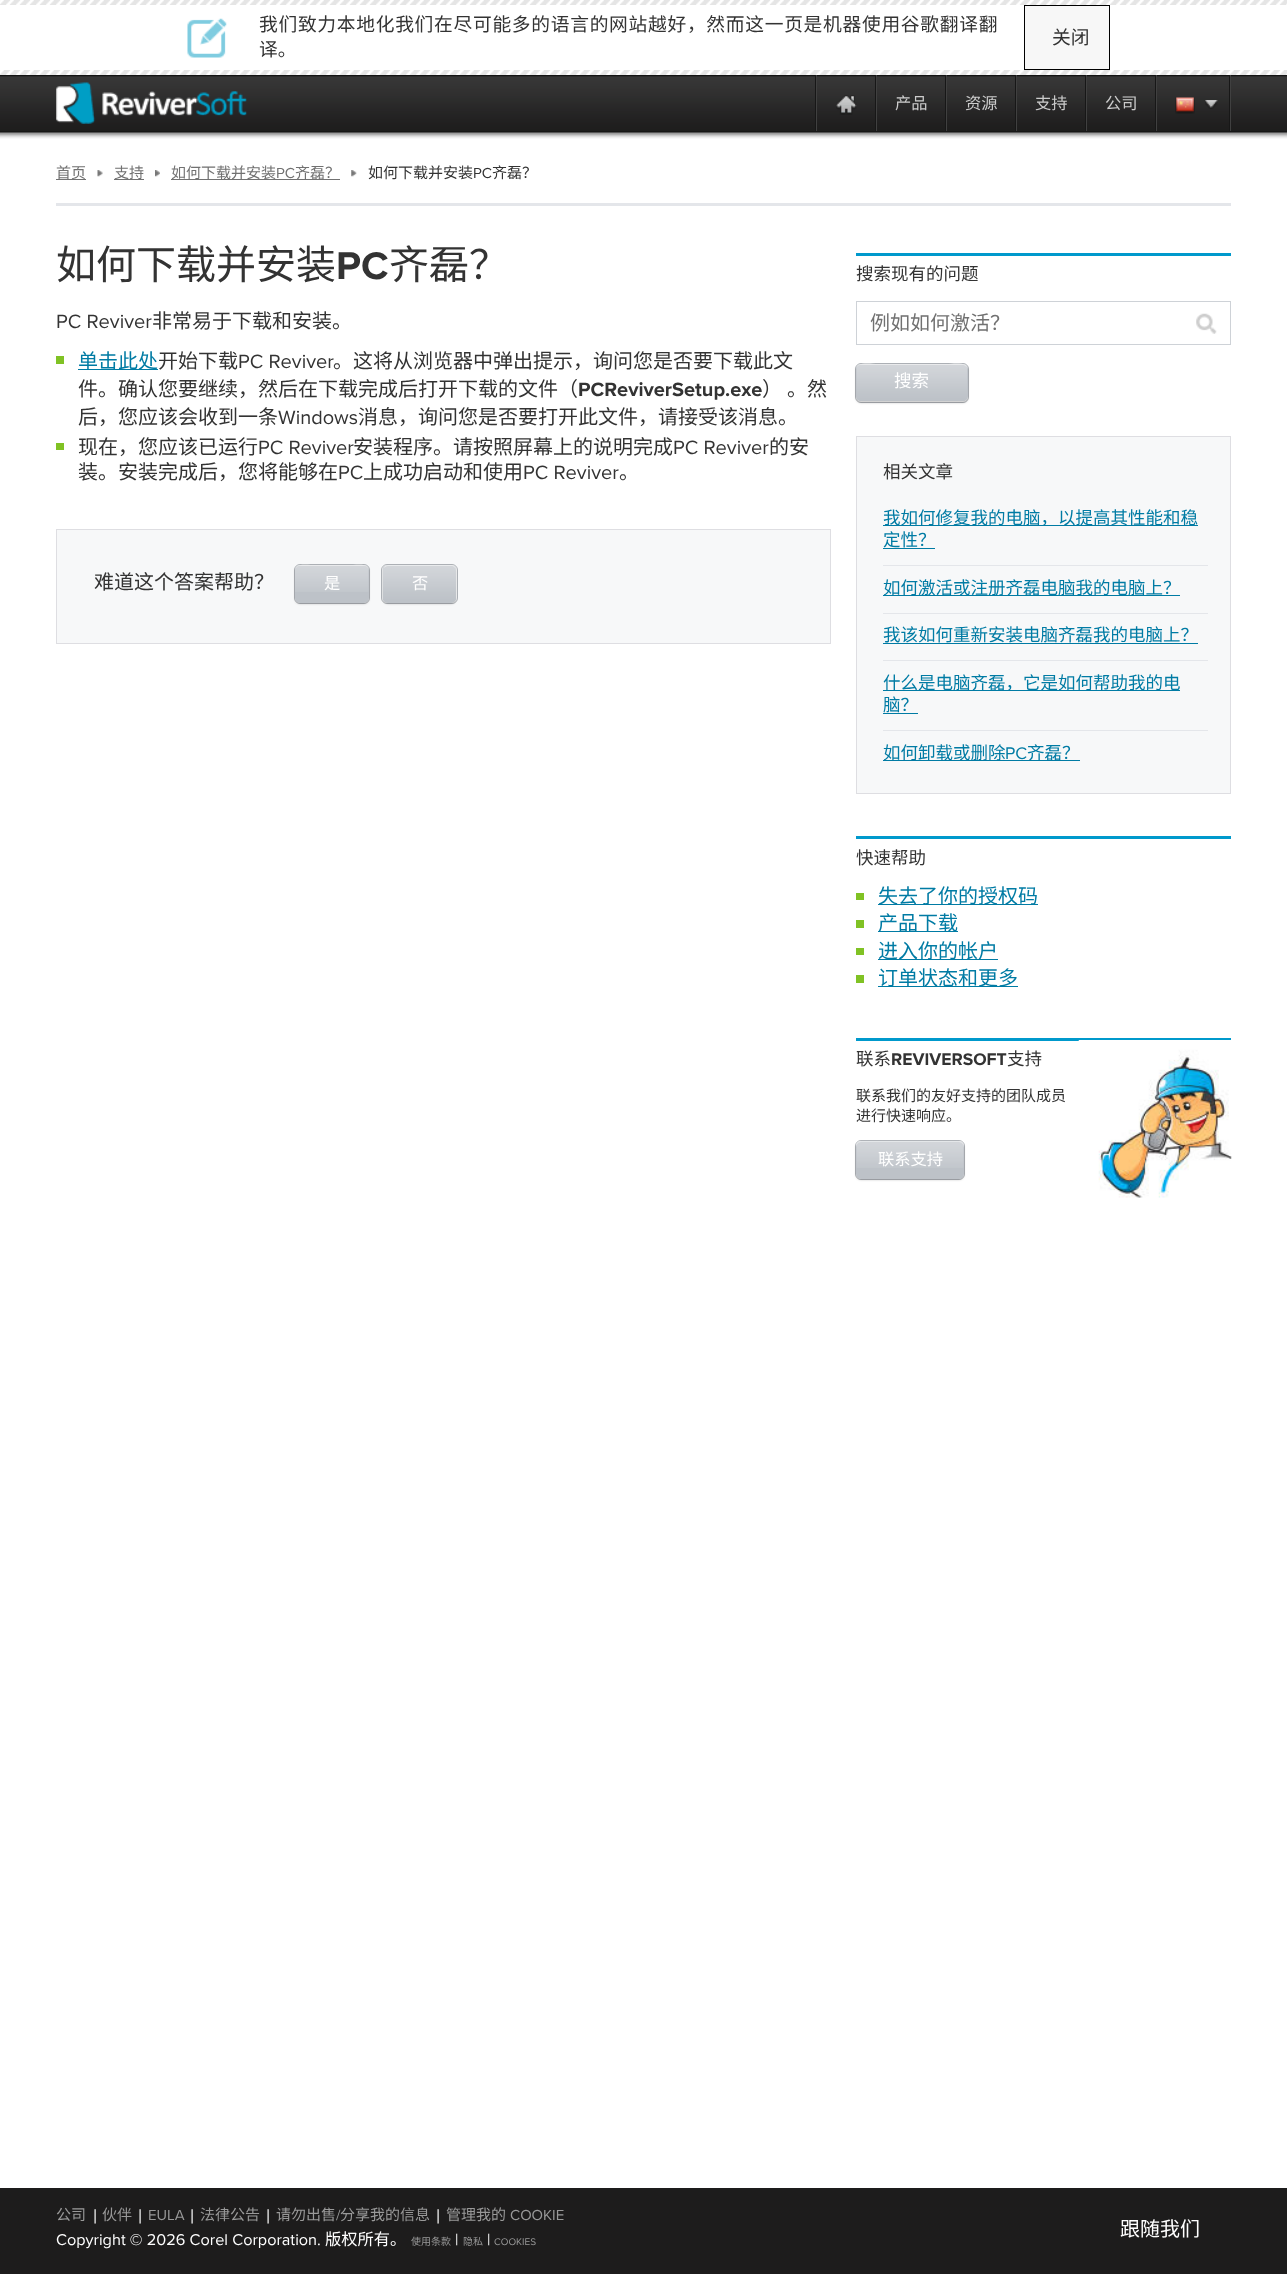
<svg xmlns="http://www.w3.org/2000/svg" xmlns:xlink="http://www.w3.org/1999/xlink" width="1287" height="2274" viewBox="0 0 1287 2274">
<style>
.cls-1{font:18.75px Noto Sans CJK SC;letter-spacing:0.7px;fill:#333333}
.cls-2{font:18.75px Noto Sans CJK SC;fill:#333333}
.cls-3{font:16.25px Noto Sans CJK SC;fill:#cccccc}
.cls-4{font:15px Noto Sans CJK SC;fill:#717171}
.cls-5{font:15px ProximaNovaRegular;fill:#717171}
.cls-6{font:15px Noto Sans CJK SC;fill:#333333}
.cls-7{font:15px ProximaNovaRegular;fill:#333333}
.cls-8{font:40px Noto Sans CJK SC;fill:#333333}
.cls-9{font:40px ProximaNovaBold;fill:#333333}
.cls-10{font:20px ProximaNovaRegular;fill:#333333}
.cls-11{font:20px Noto Sans CJK SC;fill:#333333}
.cls-12{font:20px Noto Sans CJK SC;fill:#007ba4}
.cls-13{font:20px ProximaNovaBold;fill:#333333}
.cls-14{font:16.25px Noto Sans CJK SC;fill:#ffffff}
.cls-15{font:17.5px Noto Sans CJK SC;fill:#333333}
.cls-16{font:20px Noto Sans CJK SC;fill:#717171}
.cls-17{font:17.5px Noto Sans CJK SC;fill:#ffffff}
.cls-18{font:17.5px Noto Sans CJK SC;fill:#007ba4}
.cls-19{font:17.5px ProximaNovaRegular;fill:#007ba4}
.cls-20{font:17.5px ProximaNovaBold;fill:#333333}
.cls-21{font:15px Noto Sans CJK SC;fill:#999999}
.cls-22{font:20px ProximaNovaRegular;fill:#ffffff}
.cls-23{font:15px ProximaNovaRegular;fill:#999999}
.cls-24{font:20px Noto Sans CJK SC;fill:#ffffff}
.cls-25{font:16.25px ProximaNovaRegular;fill:#ffffff}
.cls-26{font:10px Noto Sans CJK SC;fill:#999999}
.cls-27{font:10px ProximaNovaRegular;fill:#999999}
</style>
<rect width="100%" height="100%" fill="#ffffff"/>
<image xlink:href="image0.png" x="0" y="75" width="1287" height="64"/>
<image xlink:href="image1.png" x="0" y="0" width="1287" height="5"/>
<image xlink:href="image2.png" x="187" y="18" width="40" height="40"/>
<rect fill="#f7f7f7" x="1025" y="6" width="84" height="63"/>
<rect fill="#000000" x="1024" y="5" width="86" height="1"/>
<rect fill="#000000" x="1109" y="5" width="1" height="65"/>
<rect fill="#000000" x="1024" y="69" width="86" height="1"/>
<rect fill="#000000" x="1024" y="5" width="1" height="65"/>
<image xlink:href="image3.png" x="0" y="70" width="1287" height="5"/>
<image xlink:href="image4.png" x="56" y="82" width="191" height="42"/>
<rect fill="#404040" x="1230" y="75" width="1" height="56"/>
<rect fill="#171717" x="815" y="75" width="1" height="56"/>
<rect fill="#171717" x="875" y="75" width="1" height="56"/>
<rect fill="#404040" x="816" y="75" width="1" height="56"/>
<image xlink:href="image5.png" x="836" y="95" width="21" height="20"/>
<rect fill="#171717" x="945" y="75" width="1" height="56"/>
<rect fill="#404040" x="876" y="75" width="1" height="56"/>
<rect fill="#171717" x="1015" y="75" width="1" height="56"/>
<rect fill="#404040" x="946" y="75" width="1" height="56"/>
<rect fill="#171717" x="1085" y="75" width="1" height="56"/>
<rect fill="#404040" x="1016" y="75" width="1" height="56"/>
<rect fill="#171717" x="1155" y="75" width="1" height="56"/>
<rect fill="#404040" x="1086" y="75" width="1" height="56"/>
<rect fill="#171717" x="1229" y="75" width="1" height="56"/>
<rect fill="#404040" x="1156" y="75" width="1" height="56"/>
<image xlink:href="image6.png" x="1175" y="97" width="20" height="17"/>
<image xlink:href="image7.png" x="1205" y="100" width="13" height="9"/>
<rect fill="#e4e6ea" x="56" y="203" width="1175" height="3"/>
<rect fill="#717171" x="56" y="179" width="30" height="1"/>
<image xlink:href="image8.png" x="97" y="170" width="6" height="7"/>
<rect fill="#717171" x="114" y="179" width="30" height="1"/>
<image xlink:href="image9.png" x="155" y="170" width="5" height="7"/>
<rect fill="#717171" x="171" y="179" width="169" height="1"/>
<image xlink:href="image10.png" x="351" y="170" width="6" height="7"/>
<rect fill="#80c224" x="56" y="356" width="8" height="8"/>
<rect fill="#007ba4" x="78" y="369" width="80" height="1"/>
<rect fill="#80c224" x="56" y="443" width="8" height="7"/>
<rect fill="#f7f8f9" stroke="#dedee2" x="56.5" y="529.5" width="774" height="114"/>
<rect fill="none" stroke="#afb3b8" x="294.5" y="564.5" width="75" height="39" rx="5.5"/>
<rect fill="#000000" fill-opacity="0.19" filter="blur(1px)" x="295" y="566" width="74" height="38" rx="5"/>
<rect fill="#bdc2c8" x="295" y="565" width="74" height="38" rx="5"/>
<image xlink:href="image11.png" x="295" y="565" width="74" height="27"/>
<path fill="#e9eaec" d="M300 566H364C367 566 369 568 369 571C369 563 359 565 353 565H311C305 565 295 563 295 571C295 568 297 566 300 566Z"/>
<rect fill="none" stroke="#afb3b8" x="381.5" y="564.5" width="76" height="39" rx="5.5"/>
<rect fill="#000000" fill-opacity="0.19" filter="blur(1px)" x="383" y="566" width="73" height="38" rx="5"/>
<rect fill="#bdc2c8" x="383" y="565" width="73" height="38" rx="5"/>
<image xlink:href="image12.png" x="382" y="565" width="74" height="37"/>
<path fill="#ffffff" fill-opacity="0.5" d="M388 566H451C454 566 456 568 456 571V570C456 567 454 565 451 565H388C386 565 384 566 384 568C385 567 386 566 388 566Z"/>
<rect fill="#0099cc" x="856" y="253" width="375" height="3"/>
<rect fill="none" stroke="#ced2d7" x="856.5" y="301.5" width="374" height="43"/>
<image xlink:href="image13.png" x="1196" y="313" width="21" height="21"/>
<rect fill="none" stroke="#afb3b8" x="855.5" y="363.5" width="113" height="39" rx="5.5"/>
<rect fill="#000000" fill-opacity="0.19" filter="blur(1px)" x="856" y="365" width="112" height="38" rx="5"/>
<rect fill="#bdc2c8" x="856" y="364" width="112" height="37" rx="5"/>
<image xlink:href="image14.png" x="856" y="364" width="112" height="37"/>
<path fill="#ffffff" fill-opacity="0.5" d="M861 365H962C965 365 968 367 968 370C968 360 951 364 946 364H878C873 364 856 360 856 370C856 367 858 365 861 365Z"/>
<rect fill="#f7f8f9" stroke="#dedee2" x="856.5" y="436.5" width="374" height="357"/>
<rect fill="#007ba4" x="883" y="525" width="315" height="1"/>
<rect fill="#007ba4" x="883" y="548" width="52" height="1"/>
<rect fill="#e4e6ea" x="883" y="565" width="325" height="1"/>
<rect fill="#007ba4" x="883" y="595" width="297" height="1"/>
<rect fill="#e4e6ea" x="883" y="613" width="325" height="1"/>
<rect fill="#007ba4" x="883" y="643" width="315" height="1"/>
<rect fill="#e4e6ea" x="883" y="660" width="325" height="1"/>
<rect fill="#007ba4" x="883" y="690" width="297" height="1"/>
<rect fill="#007ba4" x="883" y="713" width="35" height="1"/>
<rect fill="#e4e6ea" x="883" y="730" width="325" height="1"/>
<rect fill="#007ba4" x="883" y="760" width="197" height="1"/>
<rect fill="#0099cc" x="856" y="836" width="375" height="3"/>
<rect fill="#80c224" x="856" y="893" width="8" height="7"/>
<rect fill="#007ba4" x="878" y="904" width="160" height="1"/>
<rect fill="#80c224" x="856" y="920" width="8" height="8"/>
<rect fill="#007ba4" x="878" y="931" width="80" height="1"/>
<rect fill="#80c224" x="856" y="948" width="8" height="7"/>
<rect fill="#007ba4" x="878" y="959" width="120" height="1"/>
<rect fill="#80c224" x="856" y="975" width="8" height="8"/>
<rect fill="#007ba4" x="878" y="986" width="140" height="1"/>
<rect fill="#0099cc" x="856" y="1038" width="375" height="3"/>
<image xlink:href="image15.png" x="1078" y="1040" width="154" height="158"/>
<rect fill="none" stroke="#afb3b8" x="855.5" y="1140.5" width="109" height="39" rx="5.5"/>
<rect fill="#000000" fill-opacity="0.19" filter="blur(1px)" x="856" y="1143" width="108" height="37" rx="5"/>
<rect fill="#bdc2c8" x="856" y="1141" width="108" height="38" rx="5"/>
<image xlink:href="image16.png" x="856" y="1141" width="108" height="27"/>
<path fill="#ffffff" fill-opacity="0.5" d="M861 1142H959C962 1142 964 1145 964 1148V1146C964 1143 962 1141 959 1141H861C858 1141 856 1143 856 1146V1148C856 1145 858 1142 861 1142Z"/>
<rect fill="#1d1c1c" x="0" y="2188" width="1287" height="86"/>
<text class="cls-1" x="259" y="31">我们致力本地化我们在尽可能多的语言的网站越好，然而这一页是机器使用谷歌翻译翻</text>
<text class="cls-2" x="259" y="56">译。</text>
<text class="cls-2" x="1052" y="44">关闭</text>
<text class="cls-3" x="895" y="109">产品</text>
<text class="cls-3" x="965" y="109">资源</text>
<text class="cls-3" x="1035" y="109">支持</text>
<text class="cls-3" x="1105" y="109">公司</text>
<text class="cls-4" x="56" y="178">首页</text>
<text class="cls-4" x="114" y="178">支持</text>
<text class="cls-4" x="171" y="178">如何下载并安装</text>
<text class="cls-5" x="276" y="178">PC</text>
<text class="cls-4" x="295" y="178">齐磊？</text>
<text class="cls-6" x="368" y="178">如何下载并安装</text>
<text class="cls-7" x="473" y="178">PC</text>
<text class="cls-6" x="492" y="178">齐磊？</text>
<text class="cls-8" x="56" y="279">如何下载并安装</text>
<text class="cls-9" x="336" y="279">PC</text>
<text class="cls-8" x="389" y="279">齐磊？</text>
<text class="cls-10" x="56" y="328">PC Reviver</text>
<text class="cls-11" x="152" y="328">非常易于下载和安装。</text>
<text class="cls-12" x="78" y="368">单击此处</text>
<text class="cls-11" x="158" y="368">开始下载</text>
<text class="cls-10" x="238" y="368">PC Reviver</text>
<text class="cls-11" x="333" y="368">。这将从浏览器中弹出提示，询问您是否要下载此文</text>
<text class="cls-11" x="78" y="396">件。确认您要继续，然后在下载完成后打开下载的文件（</text>
<text class="cls-13" x="578" y="396">PCReviverSetup.exe</text>
<text class="cls-11" x="762" y="396">）</text>
<text class="cls-11" x="787" y="396">。然</text>
<text class="cls-11" x="78" y="424">后，您应该会收到一条</text>
<text class="cls-10" x="278" y="424">Windows</text>
<text class="cls-11" x="358" y="424">消息，询问您是否要打开此文件，请接受该消息。</text>
<text class="cls-11" x="78" y="454">现在，您应该已运行</text>
<text class="cls-10" x="258" y="454">PC Reviver</text>
<text class="cls-11" x="353" y="454">安装程序。请按照屏幕上的说明完成</text>
<text class="cls-10" x="673" y="454">PC Reviver</text>
<text class="cls-11" x="769" y="454">的安</text>
<text class="cls-11" x="78" y="479">装。安装完成后，您将能够在</text>
<text class="cls-10" x="338" y="479">PC</text>
<text class="cls-11" x="363" y="479">上成功启动和使用</text>
<text class="cls-10" x="523" y="479">PC Reviver</text>
<text class="cls-11" x="619" y="479">。</text>
<text class="cls-11" x="94" y="589">难道这个答案帮助？</text>
<text class="cls-14" x="324" y="589">是</text>
<text class="cls-14" x="412" y="589">否</text>
<text class="cls-15" x="856" y="280">搜索现有的问题</text>
<text class="cls-16" x="870" y="330">例如如何激活？</text>
<text class="cls-17" x="894" y="387">搜索</text>
<text class="cls-15" x="883" y="478">相关文章</text>
<text class="cls-18"><tspan x="883" y="524">我如何修复我的电脑，以提高其性能和稳</tspan><tspan x="883" y="546">定性？</tspan></text>
<text class="cls-18" x="883" y="594">如何激活或注册齐磊电脑我的电脑上？</text>
<text class="cls-18" x="883" y="641">我该如何重新安装电脑齐磊我的电脑上？</text>
<text class="cls-18"><tspan x="883" y="689">什么是电脑齐磊，它是如何帮助我的电</tspan><tspan x="883" y="711">脑？</tspan></text>
<text class="cls-18" x="883" y="759">如何卸载或删除</text>
<text class="cls-19" x="1005" y="759">PC</text>
<text class="cls-18" x="1027" y="759">齐磊？</text>
<text class="cls-15" x="856" y="864">快速帮助</text>
<text class="cls-12"><tspan x="878" y="903">失去了你的授权码</tspan><tspan x="878" y="930">产品下载</tspan><tspan x="878" y="958">进入你的帐户</tspan><tspan x="878" y="985">订单状态和更多</tspan></text>
<text class="cls-15" x="856" y="1065">联系</text>
<text class="cls-20" x="891" y="1065">REVIVERSOFT</text>
<text class="cls-15" x="1007" y="1065">支持</text>
<text class="cls-6"><tspan x="856" y="1101">联系我们的友好支持的团队成员</tspan><tspan x="856" y="1121">进行快速响应。</tspan></text>
<text class="cls-14" x="878" y="1165">联系支持</text>
<text class="cls-21" x="56" y="2220">公司</text>
<text class="cls-22" x="93" y="2223">|</text>
<text class="cls-21" x="102" y="2220">伙伴</text>
<text class="cls-22" x="138" y="2223">|</text>
<text class="cls-23" x="148" y="2220">EULA</text>
<text class="cls-22" x="190" y="2223">|</text>
<text class="cls-21" x="200" y="2220">法律公告</text>
<text class="cls-22" x="266" y="2223">|</text>
<text class="cls-21" x="276" y="2220">请勿出售</text>
<text class="cls-23" x="336" y="2220">/</text>
<text class="cls-21" x="340" y="2220">分享我的信息</text>
<text class="cls-22" x="436" y="2223">|</text>
<text class="cls-21" x="446" y="2220">管理我的</text>
<text class="cls-23" x="510" y="2220">COOKIE</text>
<text class="cls-24" x="1120" y="2236">跟随我们</text>
<text class="cls-25" x="56" y="2245">Copyright © 2026 Corel Corporation.</text>
<text class="cls-14" x="325" y="2245">版权所有。</text>
<text class="cls-26" x="411" y="2245">使用条款</text>
<text class="cls-25" x="455" y="2245">|</text>
<text class="cls-26" x="463" y="2245">隐私</text>
<text class="cls-25" x="487" y="2245">|</text>
<text class="cls-27" x="494" y="2245">COOKIES</text>
</svg>
